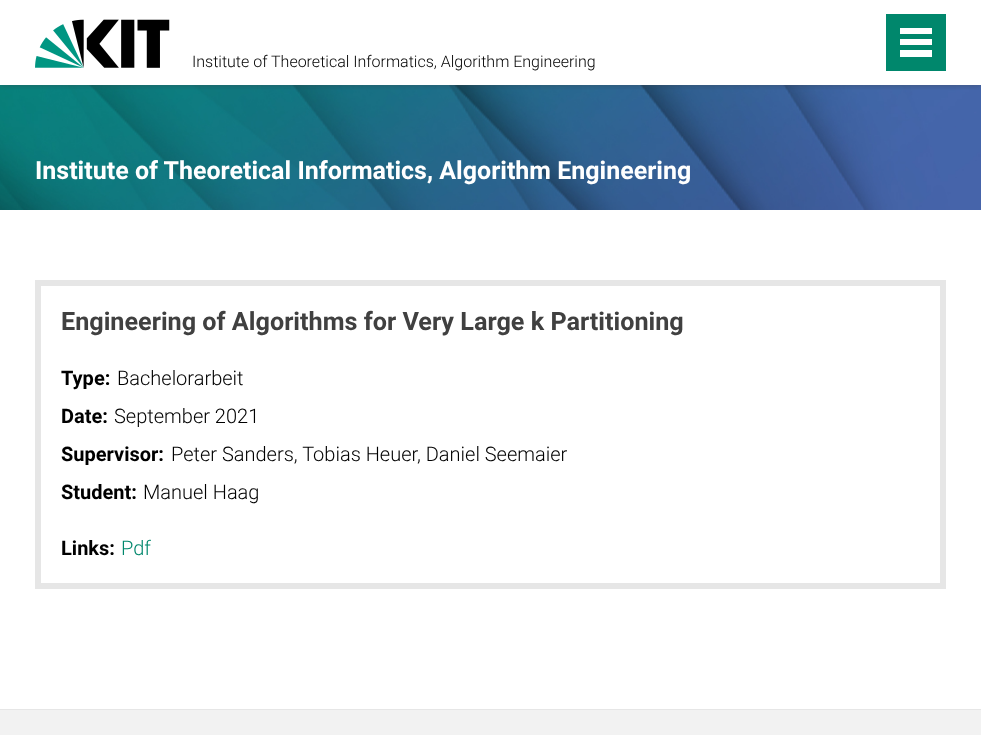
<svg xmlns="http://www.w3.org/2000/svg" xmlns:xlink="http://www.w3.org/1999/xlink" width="981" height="735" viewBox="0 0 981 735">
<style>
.cls-1{font:300 16px Roboto;fill:#000000}
.cls-2{font:bold 25px Roboto;fill:#ffffff}
.cls-3{font:bold 25.2px Roboto;fill:#404040}
.cls-4{font:bold 20px Roboto;fill:#000000}
.cls-5{font:300 20px Roboto;fill:#000000}
.cls-6{font:300 20px Roboto;fill:#00876c}
</style>
<defs>
<clipPath id="clip1"><rect x="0" y="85" width="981" height="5"/></clipPath>
</defs>
<rect width="100%" height="100%" fill="#ffffff"/>
<image xlink:href="image1.png" x="0" y="85" width="981" height="125"/>
<g clip-path="url(#clip1)">
<rect fill="#404040" fill-opacity="0.5" filter="blur(3px)" x="0" y="0" width="981" height="85"/>
</g>
<image xlink:href="image0.png" x="35" y="19" width="135" height="49"/>
<rect fill="#00876c" x="886" y="14" width="60" height="57"/>
<rect fill="#ffffff" x="900" y="50" width="32" height="7"/>
<rect fill="#ffffff" x="900" y="39" width="32" height="6"/>
<rect fill="#ffffff" x="900" y="28" width="32" height="6"/>
<rect fill="none" stroke="#e6e6e6" stroke-width="6" x="38" y="283" width="905" height="303"/>
<rect fill="#f2f2f2" x="0" y="710" width="981" height="25"/>
<rect fill="#e6e6e6" x="0" y="709" width="981" height="1"/>
<text class="cls-1" x="192" y="67">Institute of Theoretical Informatics, Algorithm Engineering</text>
<text class="cls-2" x="35" y="179">Institute of Theoretical Informatics, Algorithm Engineering</text>
<text class="cls-3" x="61" y="330">Engineering of Algorithms for Very Large k Partitioning</text>
<text class="cls-4" x="61" y="385">Type:</text>
<text class="cls-5" x="117" y="385">Bachelorarbeit</text>
<text class="cls-4" x="61" y="423">Date:</text>
<text class="cls-5" x="114" y="423">September 2021</text>
<text class="cls-4" x="61" y="461">Supervisor:</text>
<text class="cls-5" x="171" y="461">Peter Sanders, Tobias Heuer, Daniel Seemaier</text>
<text class="cls-4" x="61" y="499">Student:</text>
<text class="cls-5" x="143" y="499">Manuel Haag</text>
<text class="cls-4" x="61" y="555">Links:</text>
<text class="cls-6" x="121" y="555">Pdf</text>
</svg>
